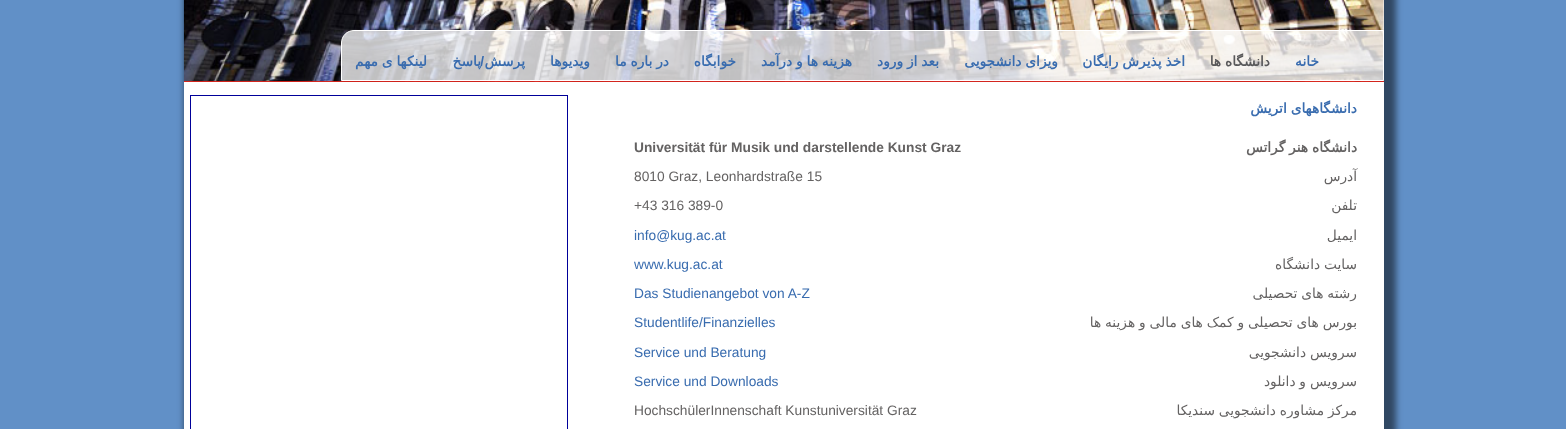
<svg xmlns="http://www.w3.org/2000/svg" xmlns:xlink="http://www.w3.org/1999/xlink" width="1566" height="429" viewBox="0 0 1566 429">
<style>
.cls-1{font:bold 13.75px DejaVu Sans;direction:rtl;fill:#396caf}
.cls-2{font:bold 13.75px DejaVu Sans;direction:rtl;fill:#58585a}
.cls-3{font:bold 13.75px Liberation Sans;direction:rtl;fill:#396caf}
.cls-4{font:bold 13.75px DejaVu Sans;direction:rtl;fill:#646262}
.cls-5{font:bold 13.75px Liberation Sans;fill:#646262}
.cls-6{font:13.75px DejaVu Sans;direction:rtl;fill:#646262}
.cls-7{font:13.75px Liberation Sans;fill:#646262}
.cls-8{font:13.75px Liberation Sans;fill:#396caf}
</style>
<rect width="100%" height="100%" fill="#6190c7"/>
<rect fill="#000000" fill-opacity="0.5" filter="blur(3px)" x="184" y="-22" width="1212" height="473" rx="13"/>
<rect fill="#ffffff" x="184" y="0" width="1200" height="429"/>
<rect fill="#dc231a" x="184" y="81" width="1200" height="1"/>
<image xlink:href="image0.png" x="183" y="0" width="1201" height="82"/>
<path fill="#ffffff" fill-opacity="0.75" stroke="#ffffff" d="M354 30.5H1383.5V80.5H341.5V43C341.5 36 347 30.5 354 30.5Z"/>
<rect fill="none" stroke="#000099" x="190.5" y="95.5" width="377" height="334"/>
<text class="cls-1" x="1319" y="66">خانه</text>
<text class="cls-2" x="1270" y="66" word-spacing="-0.5">دانشگاه ها</text>
<text class="cls-1" x="1185" y="66" word-spacing="-0.5">اخذ پذیرش رایگان</text>
<text class="cls-1" x="1058" y="66" word-spacing="-0.5">ویزای دانشجویی</text>
<text class="cls-1" x="939" y="66" word-spacing="-0.5">بعد از ورود</text>
<text class="cls-1" x="852" y="66" word-spacing="-0.5">هزینه ها و درآمد</text>
<text class="cls-1" x="736" y="66">خوابگاه</text>
<text class="cls-1" x="669" y="66" word-spacing="-0.5">در باره ما</text>
<text class="cls-1" x="590" y="66">ویدیوها</text>
<text class="cls-1" x="525" y="66">پرسش</text>
<text class="cls-1" x="481" y="66">پاسخ</text>
<text class="cls-3" x="484" y="66">/</text>
<text class="cls-1" x="427" y="66" word-spacing="-0.5">لینکها ی مهم</text>
<text class="cls-1" x="1357" y="113" word-spacing="-0.5">دانشگاههای اتریش</text>
<text class="cls-4" x="1357" y="152" word-spacing="-0.5">دانشگاه هنر گراتس</text>
<text class="cls-5" x="634" y="152">Universität für Musik und darstellende Kunst Graz</text>
<text class="cls-6" x="1357" y="181">آدرس</text>
<text class="cls-7" x="634" y="181">8010 Graz, Leonhardstraße 15</text>
<text class="cls-6" x="1357" y="210">تلفن</text>
<text class="cls-7" x="634" y="210">+43 316 389-0</text>
<text class="cls-6" x="1357" y="240">ایمیل</text>
<text class="cls-8" x="634" y="240">info@kug.ac.at</text>
<text class="cls-6" x="1357" y="269" word-spacing="-0.5">سایت دانشگاه</text>
<text class="cls-8" x="634" y="269">www.kug.ac.at</text>
<text class="cls-6" x="1357" y="298" word-spacing="-0.5">رشته های تحصیلی</text>
<text class="cls-8" x="634" y="298">Das Studienangebot von A-Z</text>
<text class="cls-6" x="1357" y="327" word-spacing="-0.5">بورس های تحصیلی و کمک های مالی و هزینه ها</text>
<text class="cls-8" x="634" y="327">Studentlife/Finanzielles</text>
<text class="cls-6" x="1357" y="357" word-spacing="-0.5">سرویس دانشجویی</text>
<text class="cls-8" x="634" y="357">Service und Beratung</text>
<text class="cls-6" x="1357" y="386" word-spacing="-0.5">سرویس و دانلود</text>
<text class="cls-8" x="634" y="386">Service und Downloads</text>
<text class="cls-6" x="1357" y="415" word-spacing="-0.5">مرکز مشاوره</text>
<text class="cls-6" x="1276" y="415">دانشجویی</text>
<text class="cls-6" x="1215" y="415">سندیکا</text>
<text class="cls-7" x="634" y="415">HochschülerInnenschaft Kunstuniversität Graz</text>
</svg>
